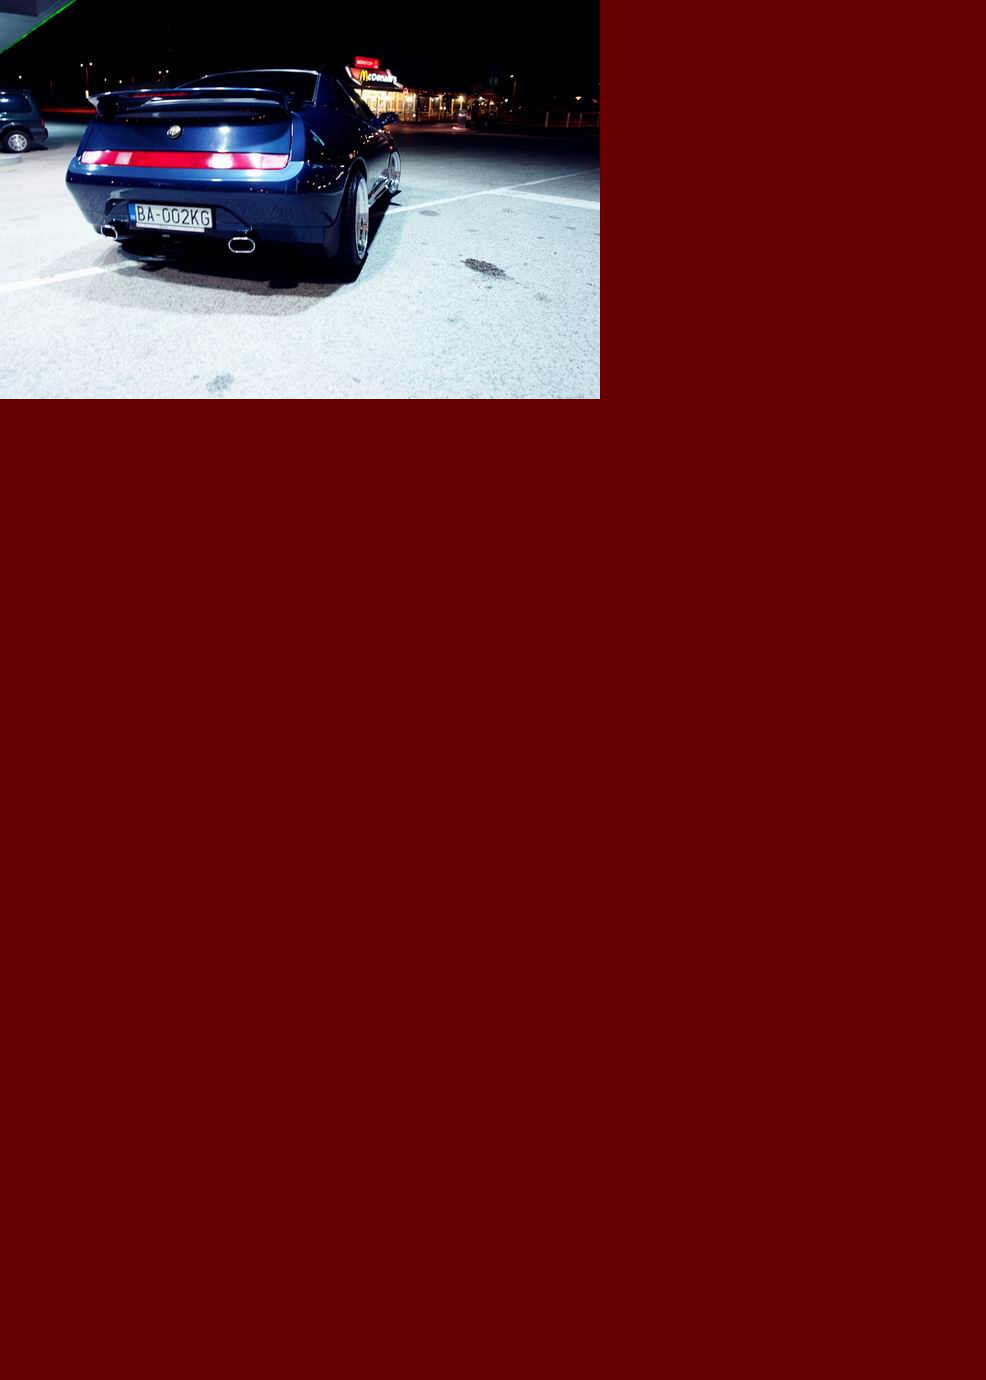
<svg xmlns="http://www.w3.org/2000/svg" xmlns:xlink="http://www.w3.org/1999/xlink" width="986" height="1380" viewBox="0 0 986 1380">
<rect width="100%" height="100%" fill="#660000"/>
<image xlink:href="image0.png" x="0" y="0" width="600" height="399"/>
</svg>
